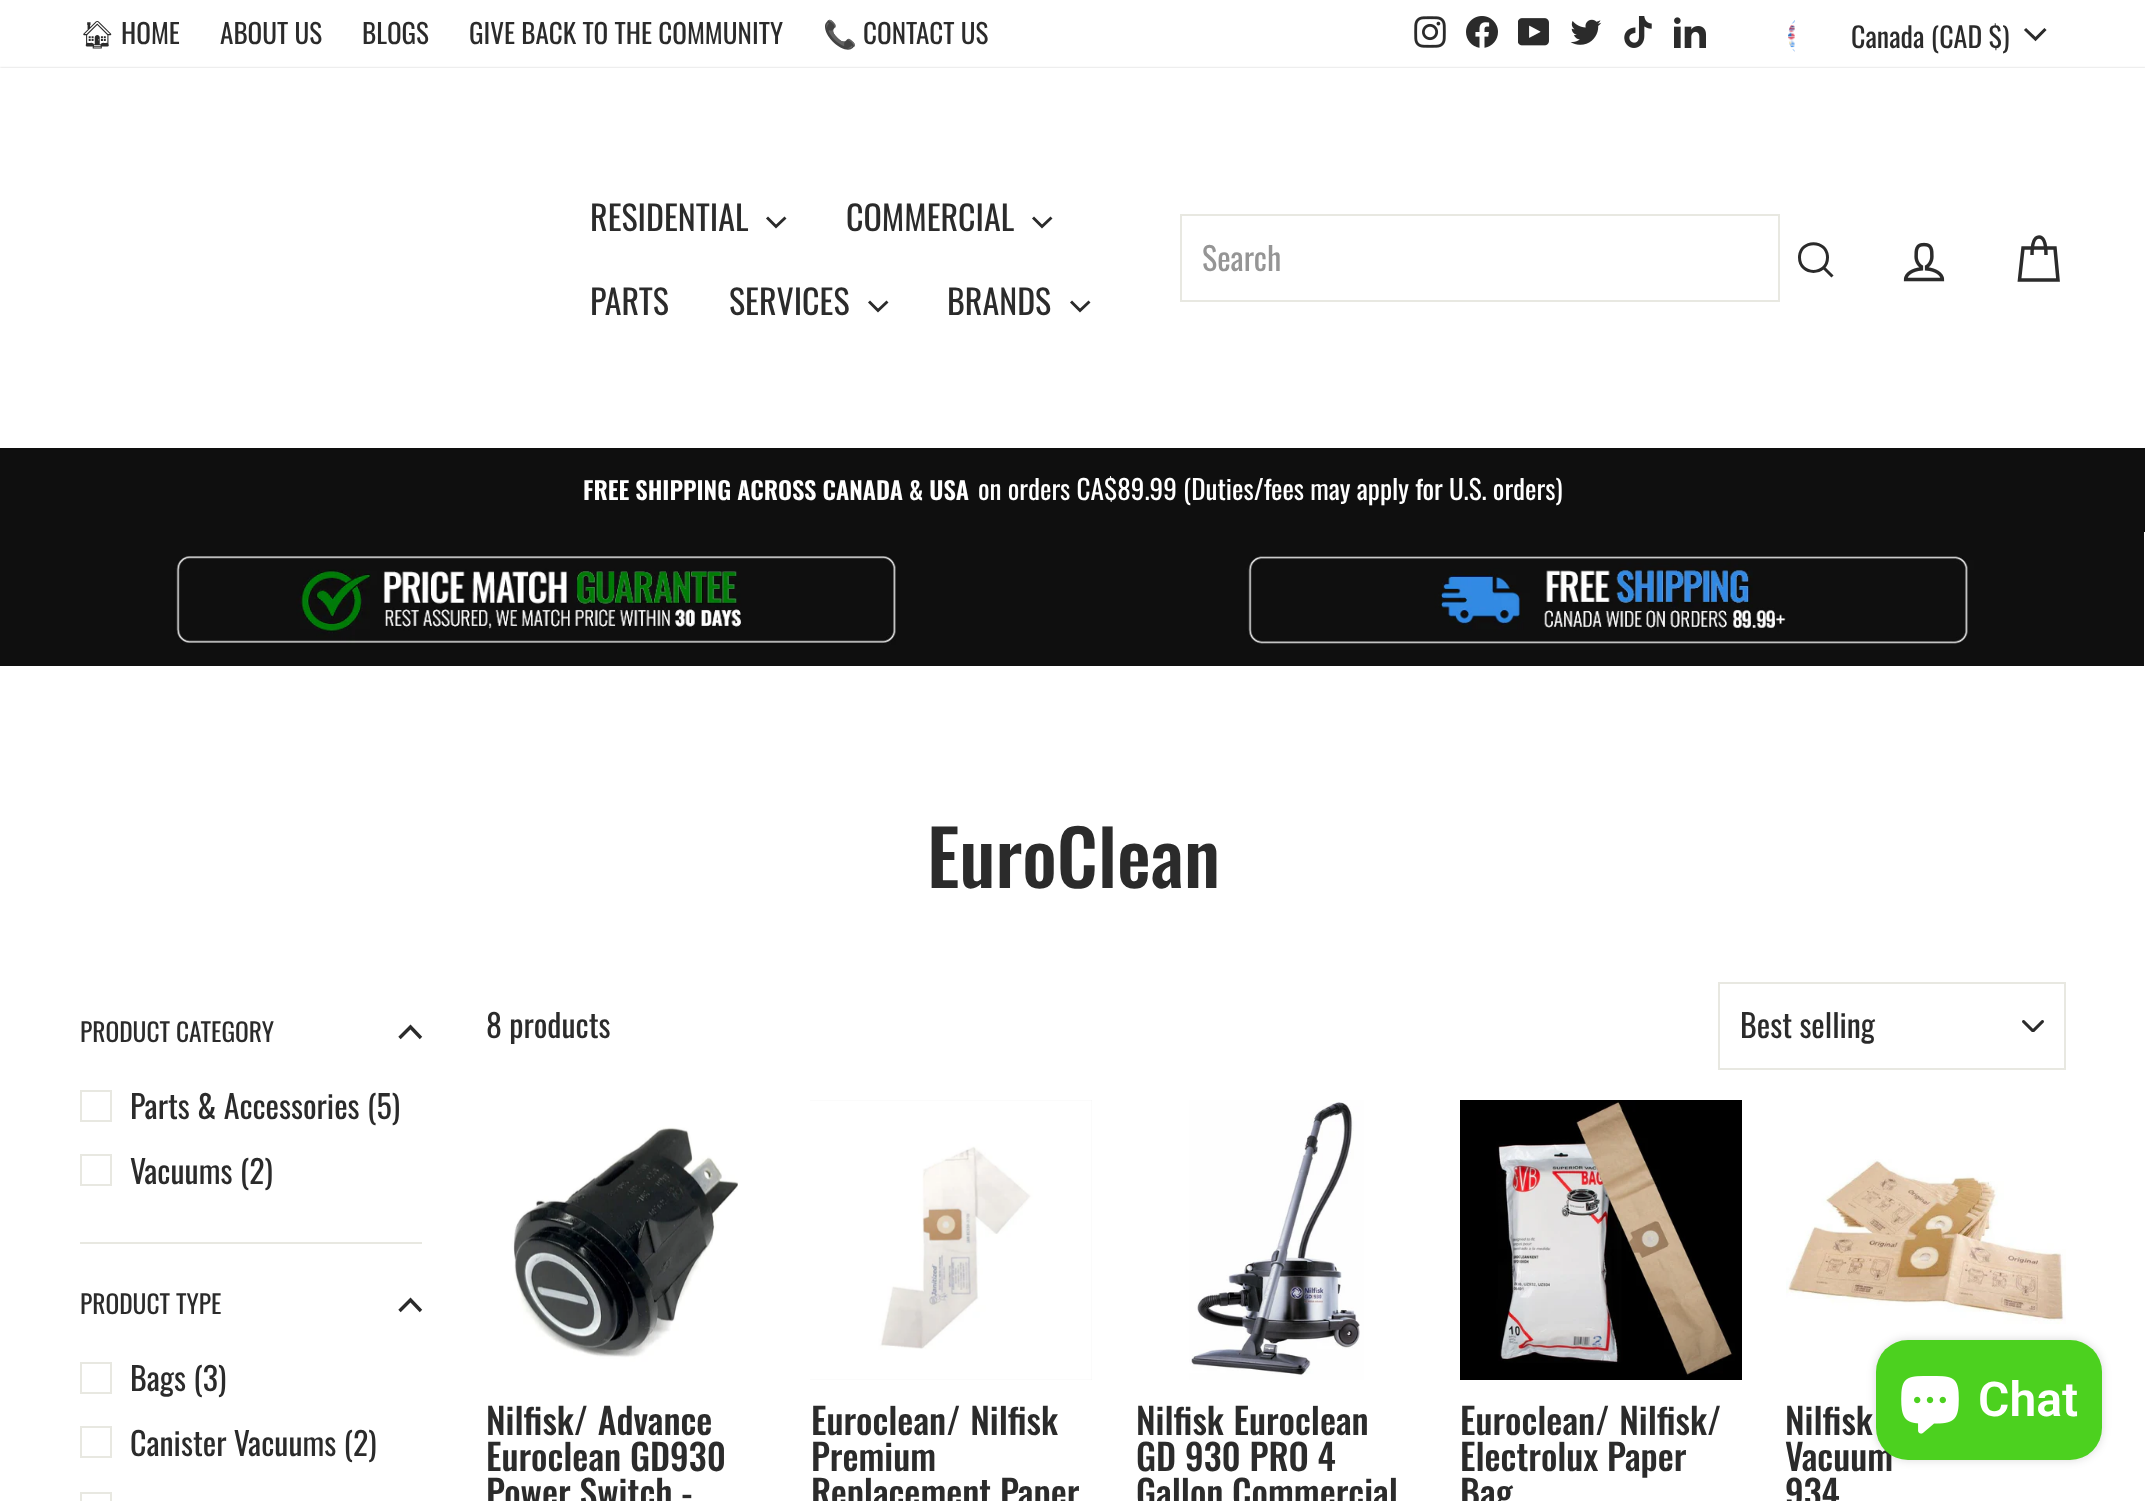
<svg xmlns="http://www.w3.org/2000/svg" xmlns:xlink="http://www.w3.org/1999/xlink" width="2145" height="1501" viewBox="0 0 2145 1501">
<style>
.cls-1{font:27.2px Noto Emoji;fill:#2b2b2b}
.cls-2{font:27.2px Oswald;fill:#2b2b2b}
.cls-3{font:27.2px Noto Color Emoji;fill:#2b2b2b}
.cls-4{font:28px Oswald;fill:#2b2b2b}
.cls-5{font:34px Oswald;fill:#2b2b2b}
.cls-6{font:32px Oswald;fill:#959595}
.cls-7{font:600 24.5px Oswald;fill:#ffffff}
.cls-8{font:27.2px Oswald;fill:#ffffff}
.cls-9{font:500 76px Oswald;fill:#2b2b2b}
.cls-10{font:25.5px Oswald;fill:#2b2b2b}
.cls-11{font:32px Oswald;fill:#2b2b2b}
.cls-12{font:500 36px Oswald;fill:#2b2b2b}
.cls-13{font:600 48px Roboto;fill:#ffffff}
</style>
<defs>
<clipPath id="clip1"><path d="M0 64H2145V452H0ZM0 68H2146V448H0Z" clip-rule="evenodd"/></clipPath>
</defs>
<rect width="100%" height="100%" fill="#ffffff"/>
<image xlink:href="image0.png" x="1414" y="16" width="32" height="32"/>
<image xlink:href="image1.png" x="1466" y="16" width="32" height="32"/>
<image xlink:href="image2.png" x="1518" y="18" width="31" height="28"/>
<image xlink:href="image3.png" x="1570" y="19" width="32" height="26"/>
<image xlink:href="image4.png" x="1624" y="16" width="28" height="32"/>
<image xlink:href="image5.png" x="1674" y="17" width="32" height="31"/>
<image xlink:href="image6.png" x="1788" y="20" width="7" height="32"/>
<path fill="none" stroke="#2b2b2b" stroke-width="3.1" d="M2025 29L2035.5 39L2045.5 29"/>
<rect fill="#0f0f0f" x="0" y="448" width="2145" height="84"/>
<g clip-path="url(#clip1)">
<rect fill="#000000" fill-opacity="0.2" filter="blur(1px)" x="0" y="68" width="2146" height="380"/>
</g>
<path fill="none" stroke="#2b2b2b" stroke-width="2.9" d="M767 217.5L776 226.5L785.5 217.5"/>
<path fill="none" stroke="#2b2b2b" stroke-width="2.9" d="M1033 217.5L1042 226.5L1051.5 217.5"/>
<path fill="none" stroke="#2b2b2b" stroke-width="2.9" d="M869 301.5L878 310.5L887.5 301.5"/>
<path fill="none" stroke="#2b2b2b" stroke-width="2.9" d="M1071 301.5L1080 310.5L1089.5 301.5"/>
<rect fill="none" stroke="#e8e8e1" stroke-width="2" x="1181" y="215" width="598" height="86"/>
<path fill="none" stroke="#2b2b2b" stroke-width="3" d="M1827.5 257.5C1827.5 276 1799.5 276 1799.5 257.5C1799.5 239 1827.5 239 1827.5 257.5ZM1832.5 276.5L1823.5 267.5"/>
<image xlink:href="image7.png" x="1903" y="242" width="42" height="40"/>
<path fill="none" stroke="#2b2b2b" stroke-width="3.5" d="M2032 255C2032 241 2035 237 2039 237C2043 237 2046 241 2046 255M2023 248H2055L2058 280H2019.5Z"/>
<image xlink:href="image8.png" x="0" y="532" width="1072" height="134"/>
<image xlink:href="image9.png" x="1072" y="532" width="1072" height="134"/>
<path fill="none" stroke="#2b2b2b" stroke-width="3.4" d="M399.5 1038L410.5 1027L421 1038"/>
<rect fill="none" stroke="#e8e8e1" stroke-width="2" x="81" y="1091" width="30" height="30"/>
<rect fill="none" stroke="#e8e8e1" stroke-width="2" x="81" y="1155" width="30" height="30"/>
<rect fill="#e8e8e1" x="80" y="1242" width="342" height="2"/>
<path fill="none" stroke="#2b2b2b" stroke-width="3.4" d="M399.5 1311L410.5 1300L421 1311"/>
<rect fill="none" stroke="#e8e8e1" stroke-width="2" x="81" y="1363" width="30" height="30"/>
<rect fill="none" stroke="#e8e8e1" stroke-width="2" x="81" y="1427" width="30" height="30"/>
<rect fill="none" stroke="#e8e8e1" stroke-width="2" x="81" y="1493" width="30" height="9"/>
<image xlink:href="image10.png" x="2022" y="1020" width="22" height="12"/>
<rect fill="none" stroke="#e8e8e1" stroke-width="2" x="1719" y="983" width="346" height="86"/>
<image xlink:href="image11.png" x="486" y="1100" width="280" height="280"/>
<rect fill="#e5e5e5" x="810" y="1100" width="282" height="280"/>
<image xlink:href="image12.png" x="810" y="1100" width="282" height="280"/>
<image xlink:href="image13.png" x="1136" y="1100" width="280" height="280"/>
<image xlink:href="image14.png" x="1460" y="1100" width="282" height="280"/>
<image xlink:href="image15.png" x="1786" y="1100" width="280" height="280"/>
<rect fill="#000000" fill-opacity="0.15" filter="blur(5px)" x="1876" y="1340" width="226" height="120" rx="32"/>
<text class="cls-1" x="80" y="44">🏠︎</text>
<text class="cls-2" x="121" y="44">HOME</text>
<text class="cls-2" x="220" y="44">ABOUT US</text>
<text class="cls-2" x="362" y="44">BLOGS</text>
<text class="cls-2" x="469" y="44">GIVE BACK TO THE COMMUNITY</text>
<text class="cls-3" x="823" y="44">📞</text>
<text class="cls-2" x="863" y="44">CONTACT US</text>
<text class="cls-4" x="1851" y="48">Canada (CAD $)</text>
<text class="cls-5" x="590" y="231">RESIDENTIAL</text>
<text class="cls-5" x="846" y="231">COMMERCIAL</text>
<text class="cls-5" x="590" y="315">PARTS</text>
<text class="cls-5" x="729" y="315">SERVICES</text>
<text class="cls-5" x="947" y="315">BRANDS</text>
<text class="cls-6" x="1202" y="271">Search</text>
<text class="cls-7" x="583" y="500">FREE SHIPPING ACROSS CANADA &amp; USA</text>
<text class="cls-8" x="978" y="500">on orders CA$89.99 (Duties/fees may apply for U.S. orders)</text>
<text class="cls-9" x="927" y="888">EuroClean</text>
<text class="cls-10" x="80" y="1042">PRODUCT CATEGORY</text>
<text class="cls-11" x="130" y="1119">Parts &amp; Accessories (5)</text>
<text class="cls-11" x="130" y="1184">Vacuums (2)</text>
<text class="cls-10" x="80" y="1314">PRODUCT TYPE</text>
<text class="cls-11" x="130" y="1391">Bags (3)</text>
<text class="cls-11" x="130" y="1456">Canister Vacuums (2)</text>
<text class="cls-11" x="486" y="1038">8 products</text>
<text class="cls-11" x="1740" y="1038">Best selling</text>
<text class="cls-12"><tspan x="486" y="1435" word-spacing="1">Nilfisk/ Advance</tspan><tspan x="486" y="1471">Euroclean GD930</tspan><tspan x="486" y="1507">Power Switch -</tspan></text>
<text class="cls-12"><tspan x="811" y="1435" word-spacing="1">Euroclean/ Nilfisk</tspan><tspan x="811" y="1471">Premium</tspan><tspan x="811" y="1507">Replacement Paper</tspan></text>
<text class="cls-12"><tspan x="1136" y="1435" word-spacing="1">Nilfisk Euroclean</tspan><tspan x="1136" y="1471">GD 930 PRO 4</tspan><tspan x="1136" y="1507">Gallon Commercial</tspan></text>
<text class="cls-12"><tspan x="1460" y="1435" word-spacing="1">Euroclean/ Nilfisk/</tspan><tspan x="1460" y="1471">Electrolux Paper</tspan><tspan x="1460" y="1507">Bag</tspan></text>
<text class="cls-12"><tspan x="1785" y="1435">Nilfisk</tspan><tspan x="1785" y="1471">Vacuum</tspan><tspan x="1785" y="1507">934</tspan></text>
<rect fill="#4cd11f" x="1876" y="1340" width="226" height="120" rx="32"/>
<image xlink:href="image16.png" x="1901" y="1376" width="58" height="58"/>
<text class="cls-13" x="1978" y="1416">Chat</text>
</svg>
